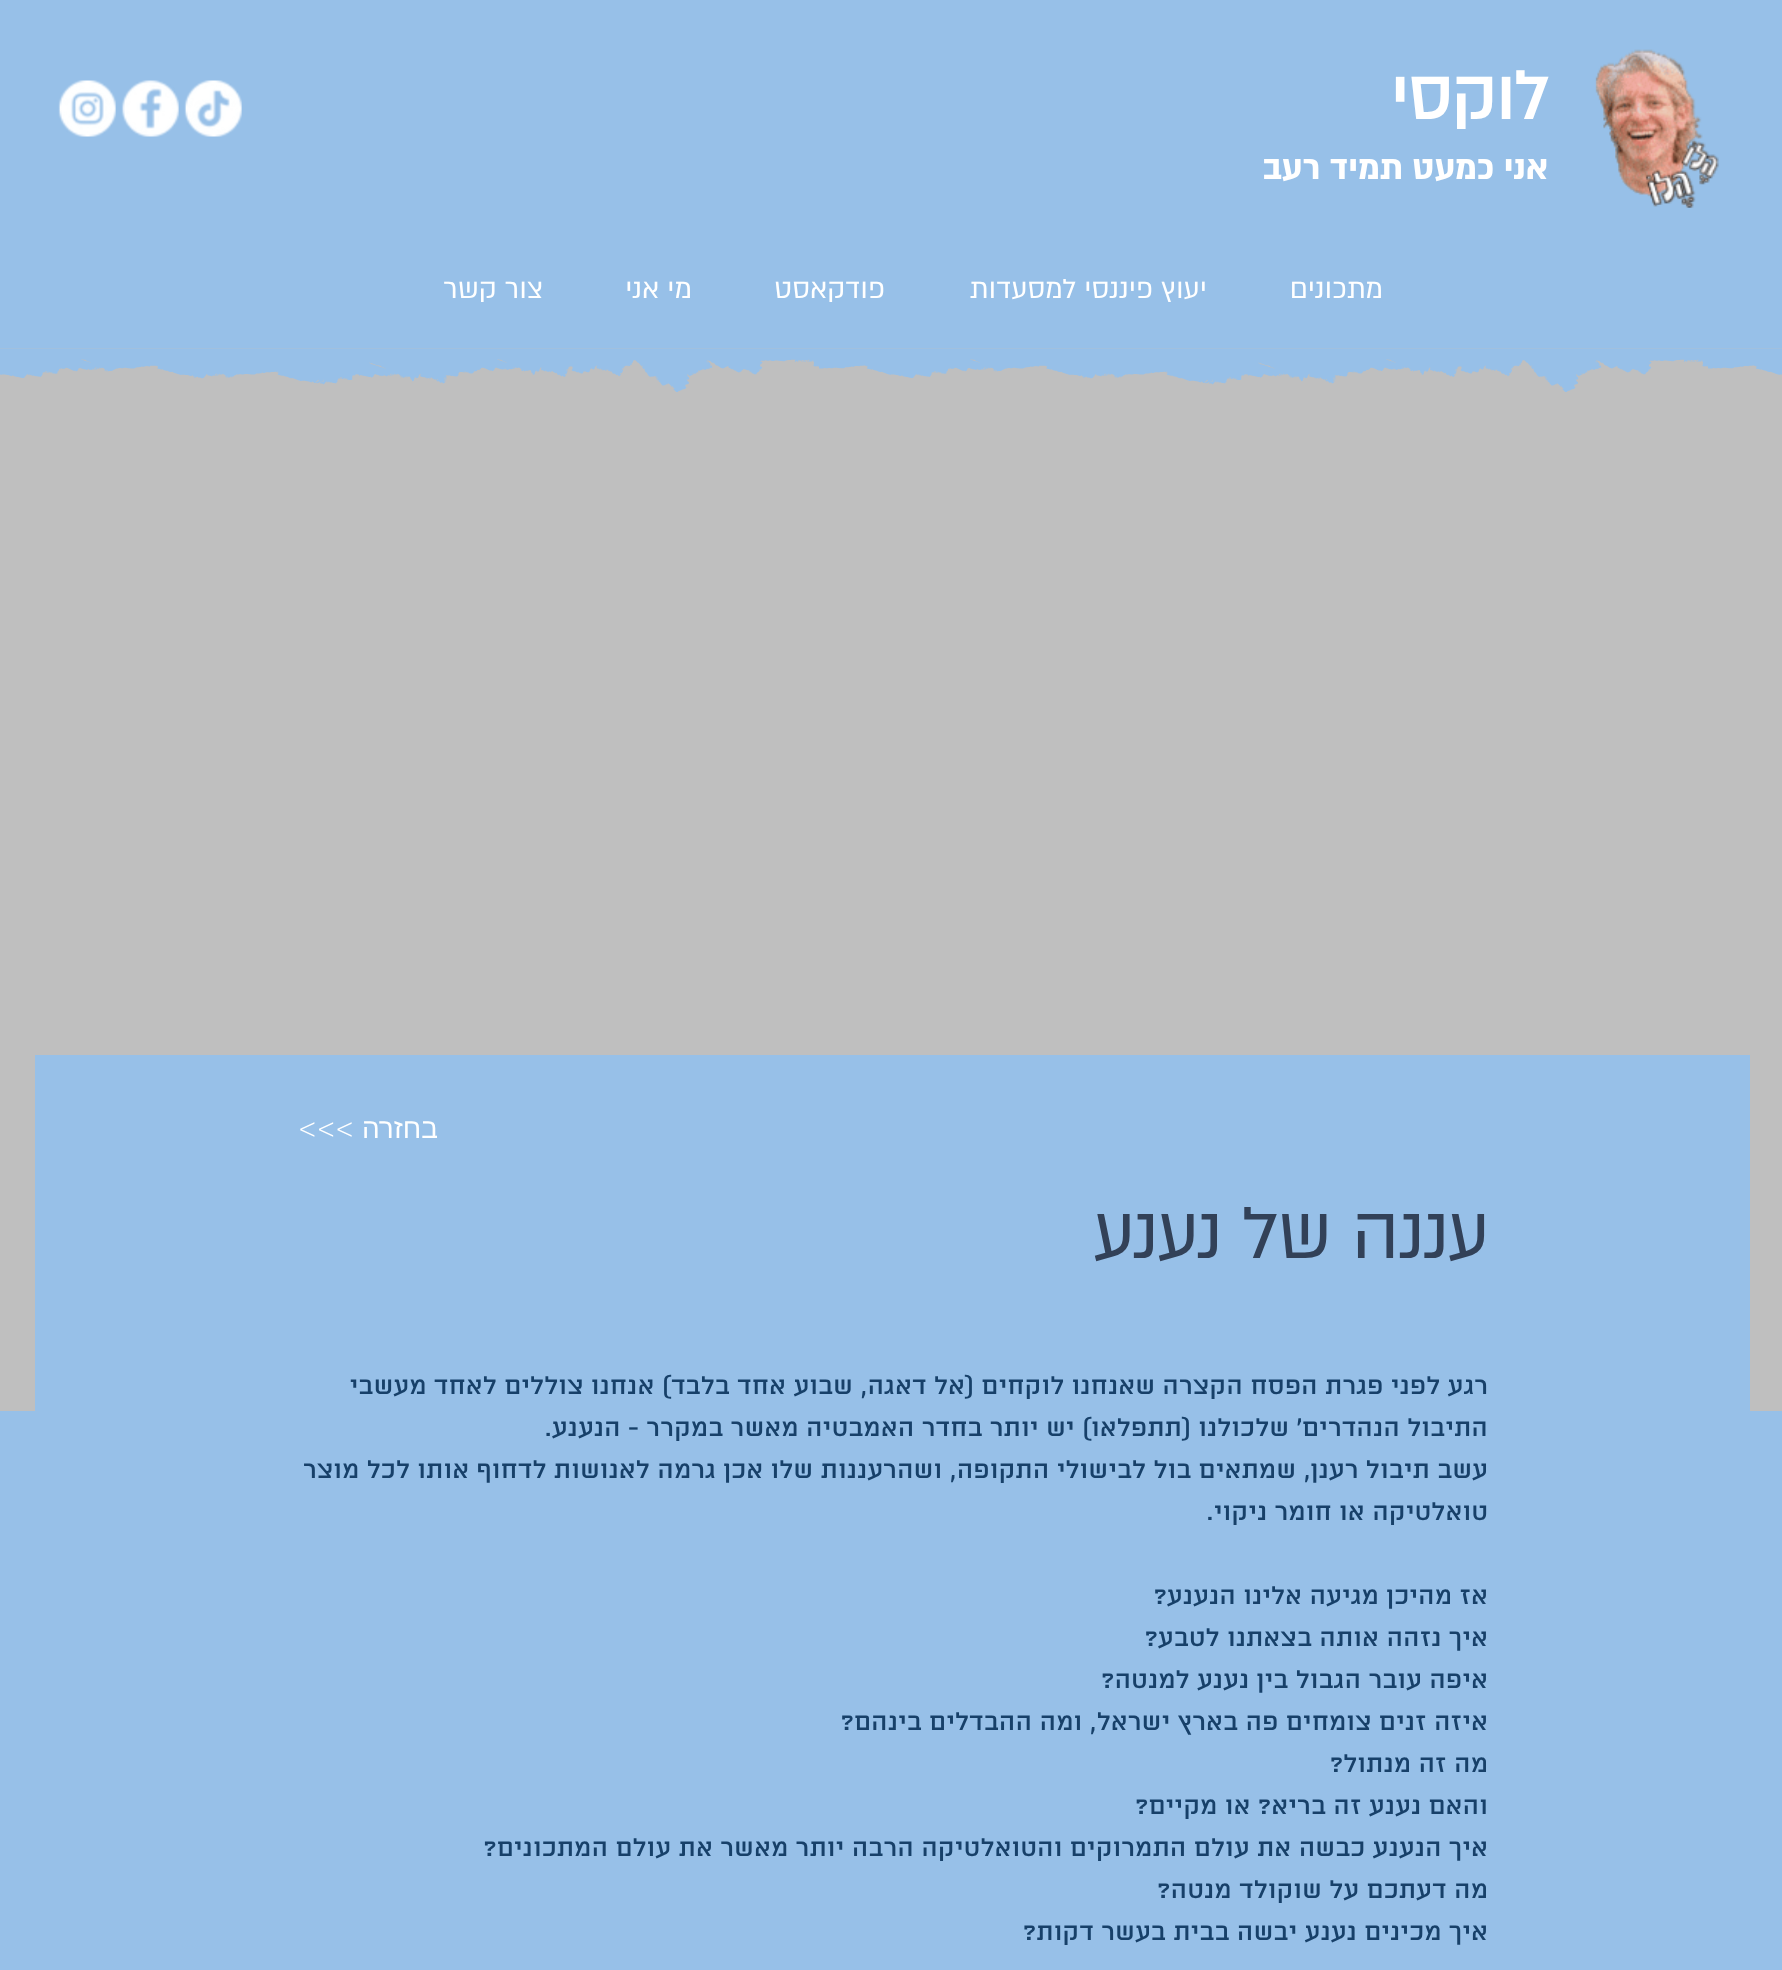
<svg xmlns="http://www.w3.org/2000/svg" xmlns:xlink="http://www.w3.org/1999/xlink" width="1782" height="1970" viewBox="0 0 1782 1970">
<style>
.cls-1{font:bold 77px 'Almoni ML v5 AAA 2';direction:rtl;fill:#ffffff}
.cls-2{font:bold 38.5px 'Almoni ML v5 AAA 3';direction:rtl;fill:#ffffff}
.cls-3{font:31.5px 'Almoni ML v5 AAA';direction:rtl;fill:#ffffff}
.cls-4{font:28px Liberation Sans;direction:rtl;fill:#ffffff}
.cls-5{font:300 28px 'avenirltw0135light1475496';fill:#ffffff}
.cls-6{font:bold 80.5px 'Almoni ML v5 AAA';direction:rtl;fill:#324158}
.cls-7{font:500 28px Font;direction:rtl;fill:#174069}
</style>
<rect width="100%" height="100%" fill="#97c0e8"/>
<image xlink:href="image0.png" x="1595" y="49" width="124" height="159"/>
<image xlink:href="image1.png" x="184" y="80" width="58" height="57"/>
<image xlink:href="image2.png" x="121" y="80" width="58" height="57"/>
<image xlink:href="image3.png" x="58" y="80" width="58" height="57"/>
<rect fill="#bfbfbf" x="0" y="348" width="1782" height="1063"/>
<image xlink:href="image4.png" x="0" y="348" width="1782" height="44"/>
<rect fill="#97c0e8" x="35" y="1055" width="1715" height="356"/>
<text class="cls-1" x="1548" y="119">לוקסי</text>
<text class="cls-2" x="1548" y="179">אני כמעט תמיד רעב</text>
<text class="cls-3" x="1383" y="298">מתכונים</text>
<text class="cls-3" x="1207" y="298">יעוץ פיננסי למסעדות</text>
<text class="cls-3" x="885" y="298">פודקאסט</text>
<text class="cls-3" x="692" y="298">מי אני</text>
<text class="cls-3" x="543" y="298">צור קשר</text>
<text class="cls-4" x="438" y="1138">בחזרה</text>
<text class="cls-5" x="298" y="1138">&lt;&lt;&lt;</text>
<text class="cls-6" x="1488" y="1258">עננה של נענע</text>
<text class="cls-7"><tspan x="1488" y="1394">רגע לפני פגרת הפסח הקצרה שאנחנו לוקחים (אל דאגה, שבוע אחד בלבד) אנחנו צוללים לאחד מעשבי</tspan><tspan x="1488" y="1436">התיבול הנהדרים' שלכולנו (תתפלאו) יש יותר בחדר האמבטיה מאשר במקרר - הנענע.</tspan><tspan x="1488" y="1478">עשב תיבול רענן, שמתאים בול לבישולי התקופה, ושהרעננות שלו אכן גרמה לאנושות לדחוף אותו לכל מוצר</tspan><tspan x="1488" y="1520">טואלטיקה או חומר ניקוי.</tspan></text>
<text class="cls-7"><tspan x="1488" y="1604">אז מהיכן מגיעה אלינו הנענע?</tspan><tspan x="1488" y="1646">איך נזהה אותה בצאתנו לטבע?</tspan><tspan x="1488" y="1688">איפה עובר הגבול בין נענע למנטה?</tspan><tspan x="1488" y="1730">איזה זנים צומחים פה בארץ ישראל, ומה ההבדלים בינהם?</tspan><tspan x="1488" y="1772">מה זה מנתול?</tspan><tspan x="1488" y="1814">והאם נענע זה בריא? או מקיים?</tspan><tspan x="1488" y="1856">איך הנענע כבשה את עולם התמרוקים והטואלטיקה הרבה יותר מאשר את עולם המתכונים?</tspan><tspan x="1488" y="1898">מה דעתכם על שוקולד מנטה?</tspan><tspan x="1488" y="1940">איך מכינים נענע יבשה בבית בעשר דקות?</tspan></text>
</svg>
